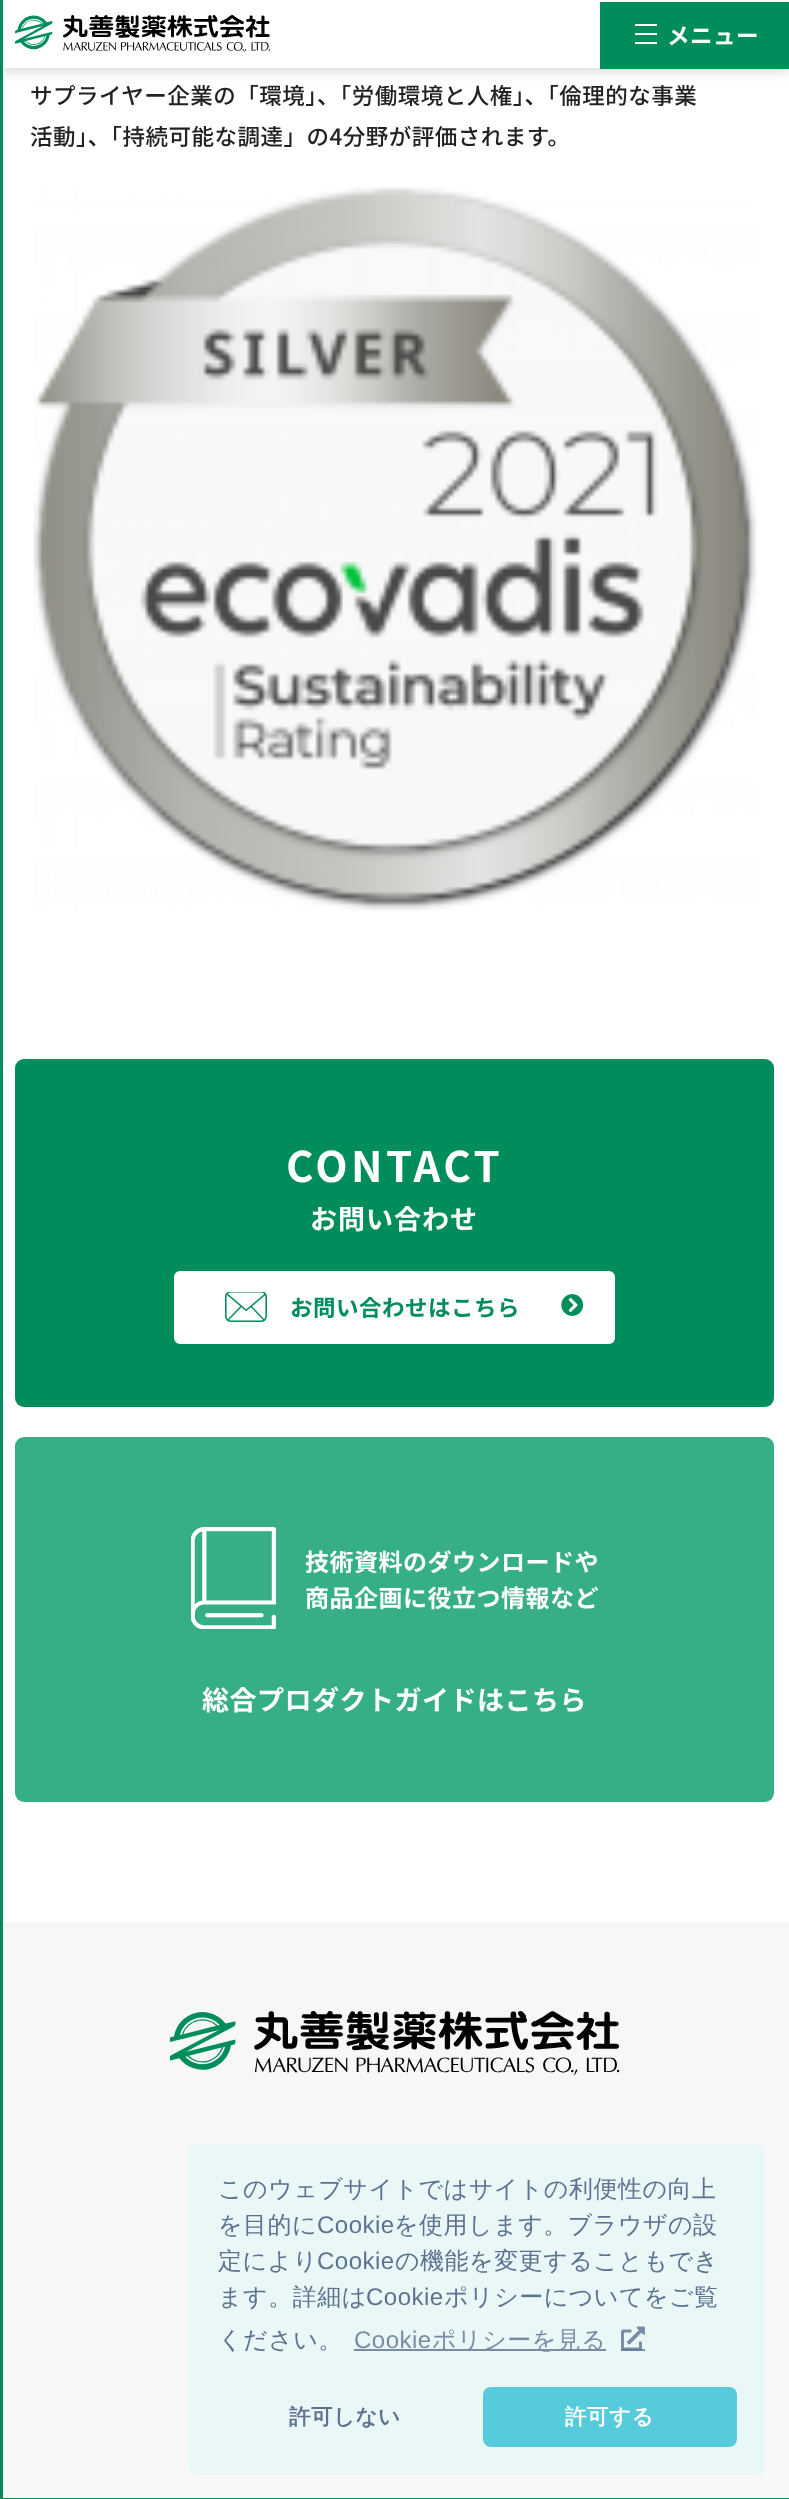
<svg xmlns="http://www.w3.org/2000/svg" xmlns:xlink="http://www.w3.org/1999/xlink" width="789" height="2499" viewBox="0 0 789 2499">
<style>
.cls-1{font:bold 22.5px Noto Sans JP;letter-spacing:0.5px;fill:#ffffff}
.cls-2{font:500 22.5px Noto Sans JP;letter-spacing:0.5px;fill:#222222}
.cls-3{font:bold 42px Noto Sans JP;letter-spacing:3.5px;fill:#ffffff}
.cls-4{font:bold 27px Noto Sans JP;letter-spacing:1px;fill:#ffffff}
.cls-5{font:bold 22.5px Noto Sans JP;letter-spacing:0.5px;fill:#008d5c}
.cls-6{font:bold 24px Noto Sans JP;letter-spacing:0.5px;fill:#ffffff}
.cls-7{font:bold 27px Noto Sans JP;letter-spacing:0.5px;fill:#ffffff}
.cls-8{font:500 24px WenQuanYi Zen Hei;letter-spacing:0.5px;fill:#5c7291}
.cls-9{font:24px Liberation Sans;letter-spacing:0.5px;fill:#5c7291}
.cls-10{font:24px Liberation Sans;letter-spacing:0.5px;fill:#788da5}
.cls-11{font:500 24px WenQuanYi Zen Hei;letter-spacing:0.5px;fill:#788da5}
.cls-12{font:bold 21.5px WenQuanYi Zen Hei;letter-spacing:0.5px;fill:#5c7291}
.cls-13{font:bold 21.5px WenQuanYi Zen Hei;letter-spacing:0.5px;fill:#ffffff}
</style>
<rect width="100%" height="100%" fill="#ffffff"/>
<rect fill="#d5d5d5" filter="blur(6px)" x="0" y="3" width="789" height="68"/>
<rect fill="#008d5c" x="0" y="2498" width="789" height="1"/>
<rect fill="#008d5c" x="0" y="0" width="3" height="2499"/>
<rect fill="#ffffff" x="3" y="0" width="786" height="68"/>
<image xlink:href="image0.png" x="15" y="15" width="255" height="38"/>
<rect fill="#008d5c" x="600" y="2" width="189" height="67"/>
<rect fill="#ffffff" x="635" y="24" width="22" height="2"/>
<rect fill="#ffffff" x="635" y="33" width="22" height="2"/>
<rect fill="#ffffff" x="635" y="42" width="22" height="2"/>
<image xlink:href="image1.png" x="33" y="187" width="724" height="724"/>
<rect fill="#008d5c" x="15" y="1059" width="759" height="348" rx="9"/>
<rect fill="#ffffff" stroke="#008d5c" stroke-width="3" x="172.5" y="1269.5" width="444" height="76" rx="7.5"/>
<image xlink:href="image2.png" x="225" y="1292" width="42" height="30"/>
<image xlink:href="image3.png" x="561" y="1294" width="23" height="22"/>
<rect fill="#36af85" x="15" y="1437" width="759" height="365" rx="9"/>
<image xlink:href="image4.png" x="191" y="1527" width="85" height="102"/>
<rect fill="#f7f7f7" x="3" y="1922" width="786" height="576"/>
<image xlink:href="image5.png" x="170" y="2011" width="450" height="65"/>
<rect fill="#eaf7f7" x="189" y="2144" width="576" height="331" rx="8"/>
<rect fill="#788da5" x="354" y="2349" width="252" height="2"/>
<rect fill="#788da5" x="621" y="2349" width="24" height="2"/>
<image xlink:href="image6.png" x="621" y="2326" width="24" height="25"/>
<rect fill="#56cbdb" x="483" y="2387" width="254" height="60" rx="8"/>
<text class="cls-1" x="667" y="44">メニュー</text>
<text class="cls-2"><tspan x="30" y="104">サプライヤー企業の「環境」、「労働環境と人権」、「倫理的な事業</tspan><tspan x="30" y="145">活動」、「持続可能な調達」の4分野が評価されます。</tspan></text>
<text class="cls-3" x="286" y="1182">CONTACT</text>
<text class="cls-4" x="310" y="1229">お問い合わせ</text>
<text class="cls-5" x="290" y="1316">お問い合わせはこちら</text>
<text class="cls-6"><tspan x="305" y="1571">技術資料のダウンロードや</tspan><tspan x="305" y="1607">商品企画に役立つ情報など</tspan></text>
<text class="cls-7" x="202" y="1710">総合プロダクトガイドはこちら</text>
<text class="cls-8"><tspan x="218" y="2197">このウェブサイトではサイトの利便性の向上</tspan><tspan x="218" y="2233">を目的に</tspan></text>
<text class="cls-9" x="317" y="2233">Cookie</text>
<text class="cls-8" x="394" y="2233">を使用します。ブラウザの設</text>
<text class="cls-8" x="218" y="2269">定により</text>
<text class="cls-9" x="317" y="2269">Cookie</text>
<text class="cls-8" x="395" y="2269">の機能を変更することもでき</text>
<text class="cls-8" x="218" y="2305">ます。詳細は</text>
<text class="cls-9" x="366" y="2305">Cookie</text>
<text class="cls-8" x="444" y="2305">ポリシーについてをご覧</text>
<text class="cls-8" x="218" y="2348">ください。</text>
<text class="cls-10" x="354" y="2348">Cookie</text>
<text class="cls-11" x="432" y="2348">ポリシーを見る</text>
<text class="cls-12" x="289" y="2424">許可しない</text>
<text class="cls-13" x="565" y="2424">許可する</text>
</svg>
